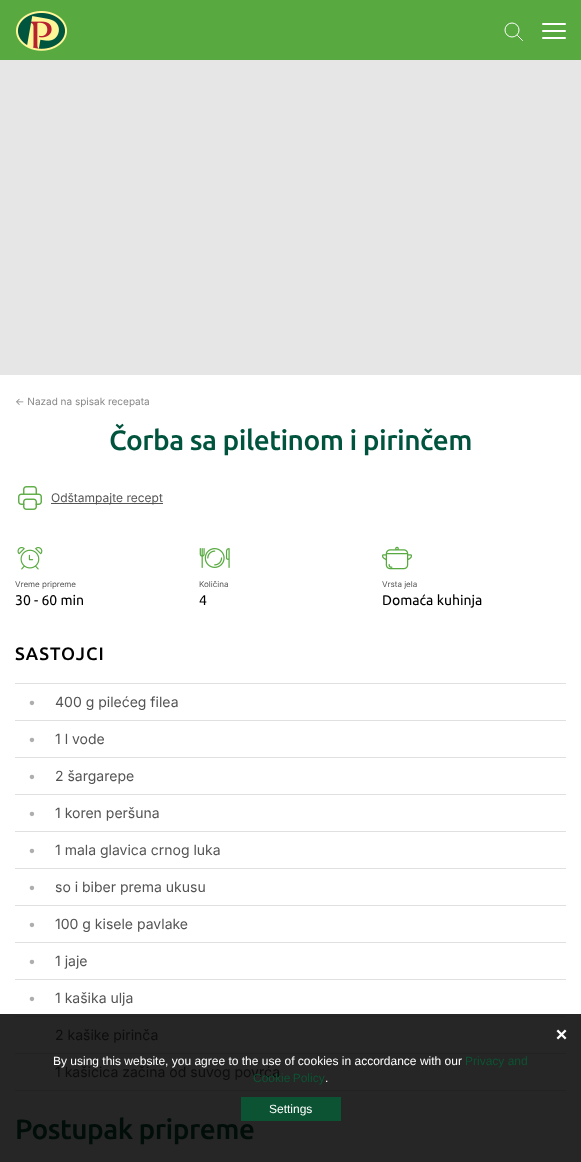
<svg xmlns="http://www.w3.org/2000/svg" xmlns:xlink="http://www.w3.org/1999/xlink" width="581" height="1162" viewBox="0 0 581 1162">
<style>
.cls-1{font:10px Inter;fill:#888888}
.cls-2{font:500 28px Ubuntu;letter-spacing:-0.5px;fill:#00543e}
.cls-3{font:12px Inter;fill:#545454}
.cls-4{font:8px Inter;fill:#545454}
.cls-5{font:14px Ubuntu;fill:#000000}
.cls-6{font:500 18px Ubuntu;letter-spacing:1px;fill:#000000}
.cls-7{font:14px Inter;fill:#aeaeae}
.cls-8{font:14px Inter;fill:#545454}
.cls-9{font:14px Inter;fill:#0d0d0d}
.cls-10{font:500 28px Ubuntu;letter-spacing:-0.5px;fill:#000d09}
.cls-11{font:12px Liberation Sans;fill:#ffffff}
.cls-12{font:12px Liberation Sans;fill:#0c5333}
</style>
<rect width="100%" height="100%" fill="#ffffff"/>
<rect fill="#262626" x="0" y="1014" width="581" height="148"/>
<rect fill="#58aa40" x="0" y="0" width="581" height="60"/>
<image xlink:href="image0.png" x="16" y="11" width="51" height="40"/>
<circle fill="none" stroke="#ffffff" cx="512" cy="30" r="7"/>
<path fill="none" stroke="#ffffff" stroke-linecap="round" stroke-linejoin="round" d="M517.5 35.5L522.5 40.5"/>
<rect fill="#ffffff" x="542" y="23" width="24" height="2" rx="1"/>
<rect fill="#ffffff" x="542" y="30" width="24" height="2" rx="1"/>
<rect fill="#ffffff" x="542" y="37" width="24" height="2" rx="1"/>
<rect fill="#e6e6e6" x="0" y="60" width="581" height="315"/>
<image xlink:href="image1.png" x="18" y="486" width="24" height="24"/>
<rect fill="#545454" x="51" y="503" width="112" height="1"/>
<image xlink:href="image2.png" x="17" y="547" width="26" height="23"/>
<image xlink:href="image3.png" x="199" y="548" width="31" height="20"/>
<image xlink:href="image4.png" x="382" y="546" width="30" height="24"/>
<rect fill="#e0e0e0" x="15" y="683" width="551" height="1"/>
<rect fill="#e0e0e0" x="15" y="720" width="551" height="1"/>
<rect fill="#e0e0e0" x="15" y="757" width="551" height="1"/>
<rect fill="#e0e0e0" x="15" y="794" width="551" height="1"/>
<rect fill="#e0e0e0" x="15" y="831" width="551" height="1"/>
<rect fill="#e0e0e0" x="15" y="868" width="551" height="1"/>
<rect fill="#e0e0e0" x="15" y="905" width="551" height="1"/>
<rect fill="#e0e0e0" x="15" y="942" width="551" height="1"/>
<rect fill="#e0e0e0" x="15" y="979" width="551" height="1"/>
<rect fill="#222222" x="15" y="1016" width="551" height="1"/>
<rect fill="#222222" x="15" y="1053" width="551" height="1"/>
<rect fill="#222222" x="15" y="1090" width="551" height="1"/>
<image xlink:href="image5.png" x="556" y="1029" width="11" height="11"/>
<text class="cls-1" x="15" y="405">← Nazad na spisak recepata</text>
<text class="cls-2" x="109" y="450">Čorba sa piletinom i pirinčem</text>
<text class="cls-3" x="51" y="502">Odštampajte recept</text>
<text class="cls-4" x="15" y="587">Vreme pripreme</text>
<text class="cls-5" x="15" y="605">30 - 60 min</text>
<text class="cls-4" x="199" y="587">Količina</text>
<text class="cls-5" x="199" y="605">4</text>
<text class="cls-4" x="382" y="587">Vrsta jela</text>
<text class="cls-5" x="382" y="605">Domaća kuhinja</text>
<text class="cls-6" x="15" y="660">SASTOJCI</text>
<text class="cls-7" x="28" y="707">•</text>
<text class="cls-8" x="55" y="707">400 g pilećeg filea</text>
<text class="cls-7" x="28" y="744">•</text>
<text class="cls-8" x="55" y="744">1 l vode</text>
<text class="cls-7" x="28" y="781">•</text>
<text class="cls-8" x="55" y="781">2 šargarepe</text>
<text class="cls-7" x="28" y="818">•</text>
<text class="cls-8" x="55" y="818">1 koren peršuna</text>
<text class="cls-7" x="28" y="855">•</text>
<text class="cls-8" x="55" y="855">1 mala glavica crnog luka</text>
<text class="cls-7" x="28" y="892">•</text>
<text class="cls-8" x="55" y="892">so i biber prema ukusu</text>
<text class="cls-7" x="28" y="929">•</text>
<text class="cls-8" x="55" y="929">100 g kisele pavlake</text>
<text class="cls-7" x="28" y="966">•</text>
<text class="cls-8" x="55" y="966">1 jaje</text>
<text class="cls-7" x="28" y="1003">•</text>
<text class="cls-8" x="55" y="1003">1 kašika ulja</text>
<text class="cls-9" x="55" y="1040">2 kašike pirinča</text>
<text class="cls-9" x="55" y="1077">1 kašičica začina od suvog povrća</text>
<text class="cls-10" x="15" y="1139">Postupak pripreme</text>
<text class="cls-11" x="53" y="1065">By using this website, you agree to the use of cookies in accordance with our</text>
<text class="cls-12" x="465" y="1065">Privacy and</text>
<text class="cls-12" x="253" y="1082" word-spacing="-1">Cookie Policy</text>
<text class="cls-11" x="325" y="1082">.</text>
<rect fill="#0c5333" x="241" y="1097" width="100" height="24"/>
<text class="cls-11" x="269" y="1113">Settings</text>
</svg>
